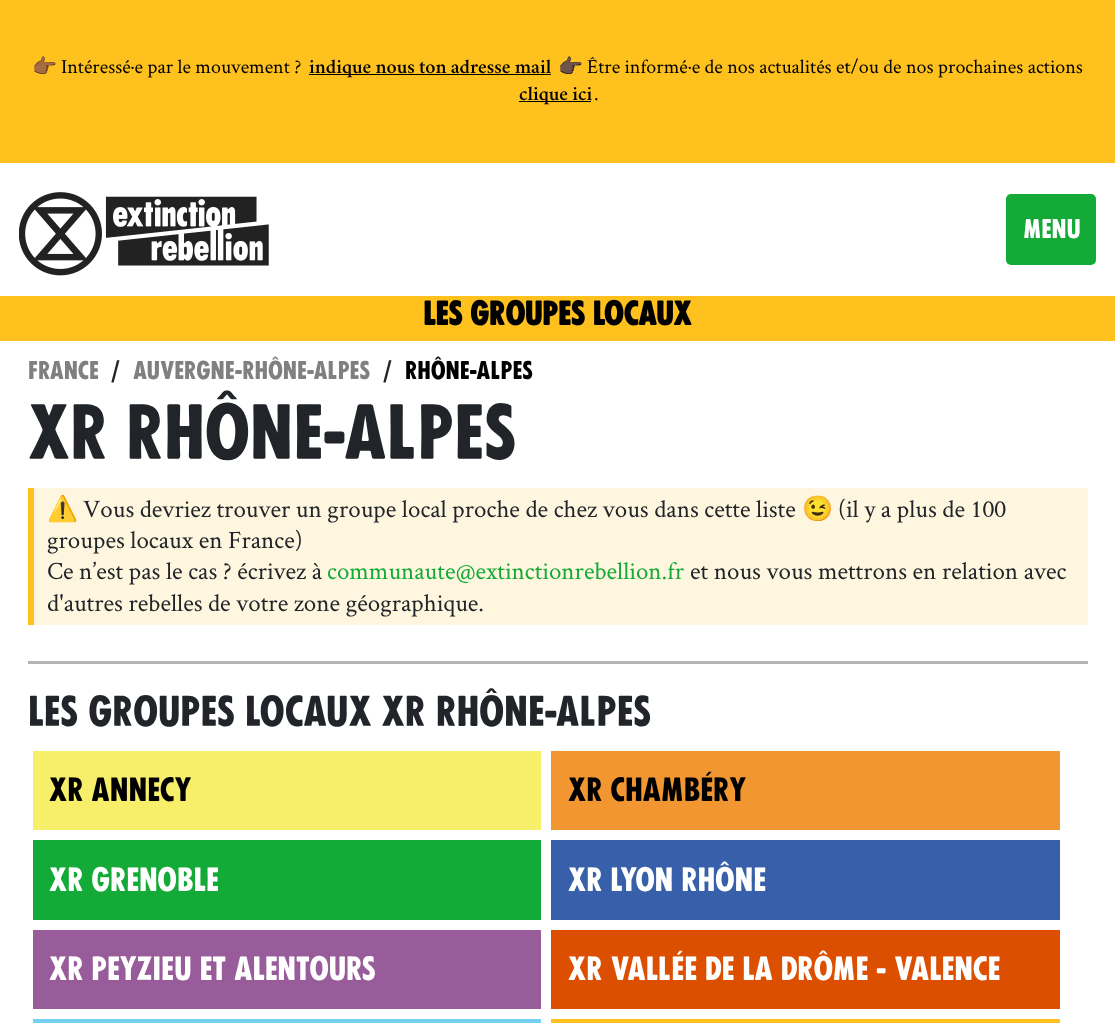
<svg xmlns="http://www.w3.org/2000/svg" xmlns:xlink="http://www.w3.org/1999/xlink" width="1115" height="1023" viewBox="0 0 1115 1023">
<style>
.cls-1{font:20px Noto Color Emoji;fill:#000000}
.cls-2{font:20px Crimson Text;fill:#000000}
.cls-3{font:600 20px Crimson;fill:#000000}
.cls-4{font:25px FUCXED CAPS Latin;fill:#ffffff}
.cls-5{font:bold 31.25px FUCXED CAPS Latin;fill:#000000}
.cls-6{font:23.75px FUCXED CAPS Latin;fill:#808080}
.cls-7{font:23.75px FUCXED CAPS Latin;fill:#212529}
.cls-8{font:23.75px FUCXED CAPS Latin;fill:#000000}
.cls-9{font:72.5px FUCXED CAPS Latin;fill:#212529}
.cls-10{font:25px Noto Color Emoji;fill:#212529}
.cls-11{font:25px Crimson Text;fill:#212529}
.cls-12{font:25px Crimson Text;fill:#14aa37}
.cls-13{font:40px FUCXED CAPS Latin;fill:#212529}
.cls-14{font:31.25px FUCXED CAPS Latin;fill:#000000}
.cls-15{font:31.25px FUCXED CAPS Latin;fill:#ffffff}
</style>
<rect width="100%" height="100%" fill="#ffffff"/>
<rect fill="#ffc11e" x="0" y="0" width="1115" height="163"/>
<rect fill="#000000" x="309" y="74" width="242" height="1"/>
<rect fill="#000000" x="519" y="101" width="72" height="1"/>
<image xlink:href="image0.png" x="19" y="192" width="250" height="84"/>
<rect fill="#14aa37" x="1006" y="194" width="90" height="71" rx="5"/>
<rect fill="#ffc11e" x="0" y="296" width="1115" height="45"/>
<rect fill="#b4b4b4" x="28" y="661" width="1060" height="3"/>
<rect fill="#fff6df" x="34" y="488" width="1054" height="137"/>
<rect fill="#ffc11e" x="28" y="488" width="6" height="137"/>
<rect fill="#f7ee6a" x="33" y="751" width="508" height="79"/>
<rect fill="#f19631" x="551" y="751" width="509" height="79"/>
<rect fill="#14aa37" x="33" y="840" width="508" height="80"/>
<rect fill="#3860aa" x="551" y="840" width="509" height="80"/>
<rect fill="#985c9b" x="33" y="930" width="508" height="79"/>
<rect fill="#dc4f00" x="551" y="930" width="509" height="79"/>
<rect fill="#75d0f1" x="33" y="1019" width="508" height="4"/>
<rect fill="#ffc11e" x="551" y="1019" width="509" height="4"/>
<text class="cls-1" x="32" y="73">👉🏾</text>
<text class="cls-2" x="61" y="73">Intéressé·e par le mouvement ?</text>
<text class="cls-3" x="309" y="73">indique nous ton adresse mail</text>
<text class="cls-1" x="558" y="73">👉🏿</text>
<text class="cls-2" x="587" y="73">Être informé·e de nos actualités et/ou de nos prochaines actions</text>
<text class="cls-3" x="519" y="100">clique ici</text>
<text class="cls-2" x="594" y="100">.</text>
<text class="cls-4" x="1023" y="238">MENU</text>
<text class="cls-5" x="423" y="325">LES GROUPES LOCAUX</text>
<text class="cls-6" x="28" y="379">France</text>
<text class="cls-7" x="111" y="379">/</text>
<text class="cls-6" x="133" y="379">Auvergne-Rhône-Alpes</text>
<text class="cls-7" x="383" y="379">/</text>
<text class="cls-8" x="405" y="379">Rhône-Alpes</text>
<text class="cls-9" x="28" y="459">XR RHÔNE-ALPES</text>
<text class="cls-10" x="47" y="517">⚠️</text>
<text class="cls-11" x="83" y="517">Vous devriez trouver un groupe local proche de chez vous dans cette liste</text>
<text class="cls-10" x="802" y="517">😉</text>
<text class="cls-11" x="838" y="517">(il y a plus de 100</text>
<text class="cls-11"><tspan x="47" y="548">groupes locaux en France)</tspan><tspan x="47" y="579">Ce n’est pas le cas ? écrivez à</tspan></text>
<text class="cls-12" x="327" y="579">communaute@extinctionrebellion.fr</text>
<text class="cls-11" x="690" y="579">et nous vous mettrons en relation avec</text>
<text class="cls-11" x="47" y="611">d'autres rebelles de votre zone géographique.</text>
<text class="cls-13" x="28" y="726">LES GROUPES LOCAUX XR RHÔNE-ALPES</text>
<text class="cls-14" x="49" y="801">XR Annecy</text>
<text class="cls-14" x="568" y="801">XR Chambéry</text>
<text class="cls-15" x="49" y="891">XR Grenoble</text>
<text class="cls-15" x="568" y="891">XR Lyon Rhône</text>
<text class="cls-15" x="49" y="980">XR Peyzieu et alentours</text>
<text class="cls-15" x="568" y="980">XR Vallée de la Drôme - Valence</text>
</svg>
